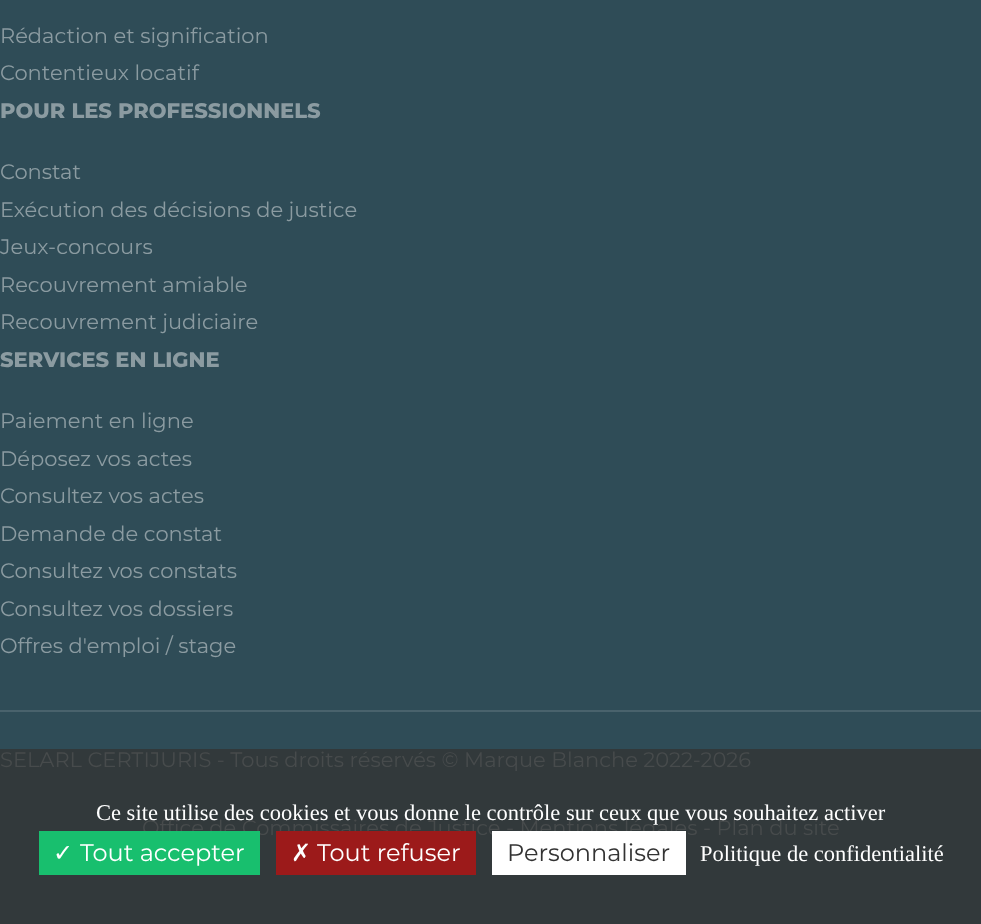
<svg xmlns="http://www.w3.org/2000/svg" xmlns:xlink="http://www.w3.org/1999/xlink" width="981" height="924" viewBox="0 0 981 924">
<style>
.cls-1{font:21px Montserrat;fill:#8b9ba1}
.cls-2{font:800 21px Montserrat;fill:#8b9ba1}
.cls-3{font:21px Montserrat;fill:#474b4c}
.cls-4{font:22.5px Liberation Serif;fill:#ffffff}
.cls-5{font:24px DejaVu Sans;fill:#ffffff}
.cls-6{font:24px Montserrat;fill:#ffffff}
.cls-7{font:24px Montserrat;fill:#333333}
</style>
<rect width="100%" height="100%" fill="#2f4c57"/>
<rect fill="#49626c" x="0" y="710" width="981" height="2"/>
<rect fill="#32393b" x="0" y="749" width="981" height="175"/>
<text class="cls-1"><tspan x="0" y="43">Rédaction et signification</tspan><tspan x="0" y="80">Contentieux locatif</tspan></text>
<text class="cls-2" x="0" y="118">POUR LES PROFESSIONNELS</text>
<text class="cls-1"><tspan x="0" y="179">Constat</tspan><tspan x="0" y="217">Exécution des décisions de justice</tspan><tspan x="0" y="254">Jeux-concours</tspan><tspan x="0" y="292">Recouvrement amiable</tspan><tspan x="0" y="329">Recouvrement judiciaire</tspan></text>
<text class="cls-2" x="0" y="367">SERVICES EN LIGNE</text>
<text class="cls-1"><tspan x="0" y="428">Paiement en ligne</tspan><tspan x="0" y="466">Déposez vos actes</tspan><tspan x="0" y="503">Consultez vos actes</tspan><tspan x="0" y="541">Demande de constat</tspan><tspan x="0" y="578">Consultez vos constats</tspan><tspan x="0" y="616">Consultez vos dossiers</tspan><tspan x="0" y="653">Offres d'emploi / stage</tspan></text>
<text class="cls-3" x="0" y="767">SELARL CERTIJURIS - Tous droits réservés © Marque Blanche 2022-2026</text>
<text class="cls-3" x="142" y="835">Office de Commissaires de Justice - Mentions légales - Plan du site</text>
<text class="cls-4" x="96" y="820">Ce site utilise des cookies et vous donne le contrôle sur ceux que vous souhaitez activer</text>
<rect fill="#18bf6e" x="39" y="831" width="221" height="44"/>
<text class="cls-5" x="53" y="861">✓</text>
<text class="cls-6" x="80" y="861">Tout accepter</text>
<rect fill="#9c1a1a" x="276" y="831" width="200" height="44"/>
<text class="cls-5" x="291" y="861">✗</text>
<text class="cls-6" x="317" y="861">Tout refuser</text>
<rect fill="#ffffff" x="492" y="831" width="194" height="44"/>
<text class="cls-7" x="507" y="861">Personnaliser</text>
<text class="cls-4" x="700" y="861">Politique de confidentialité</text>
</svg>
